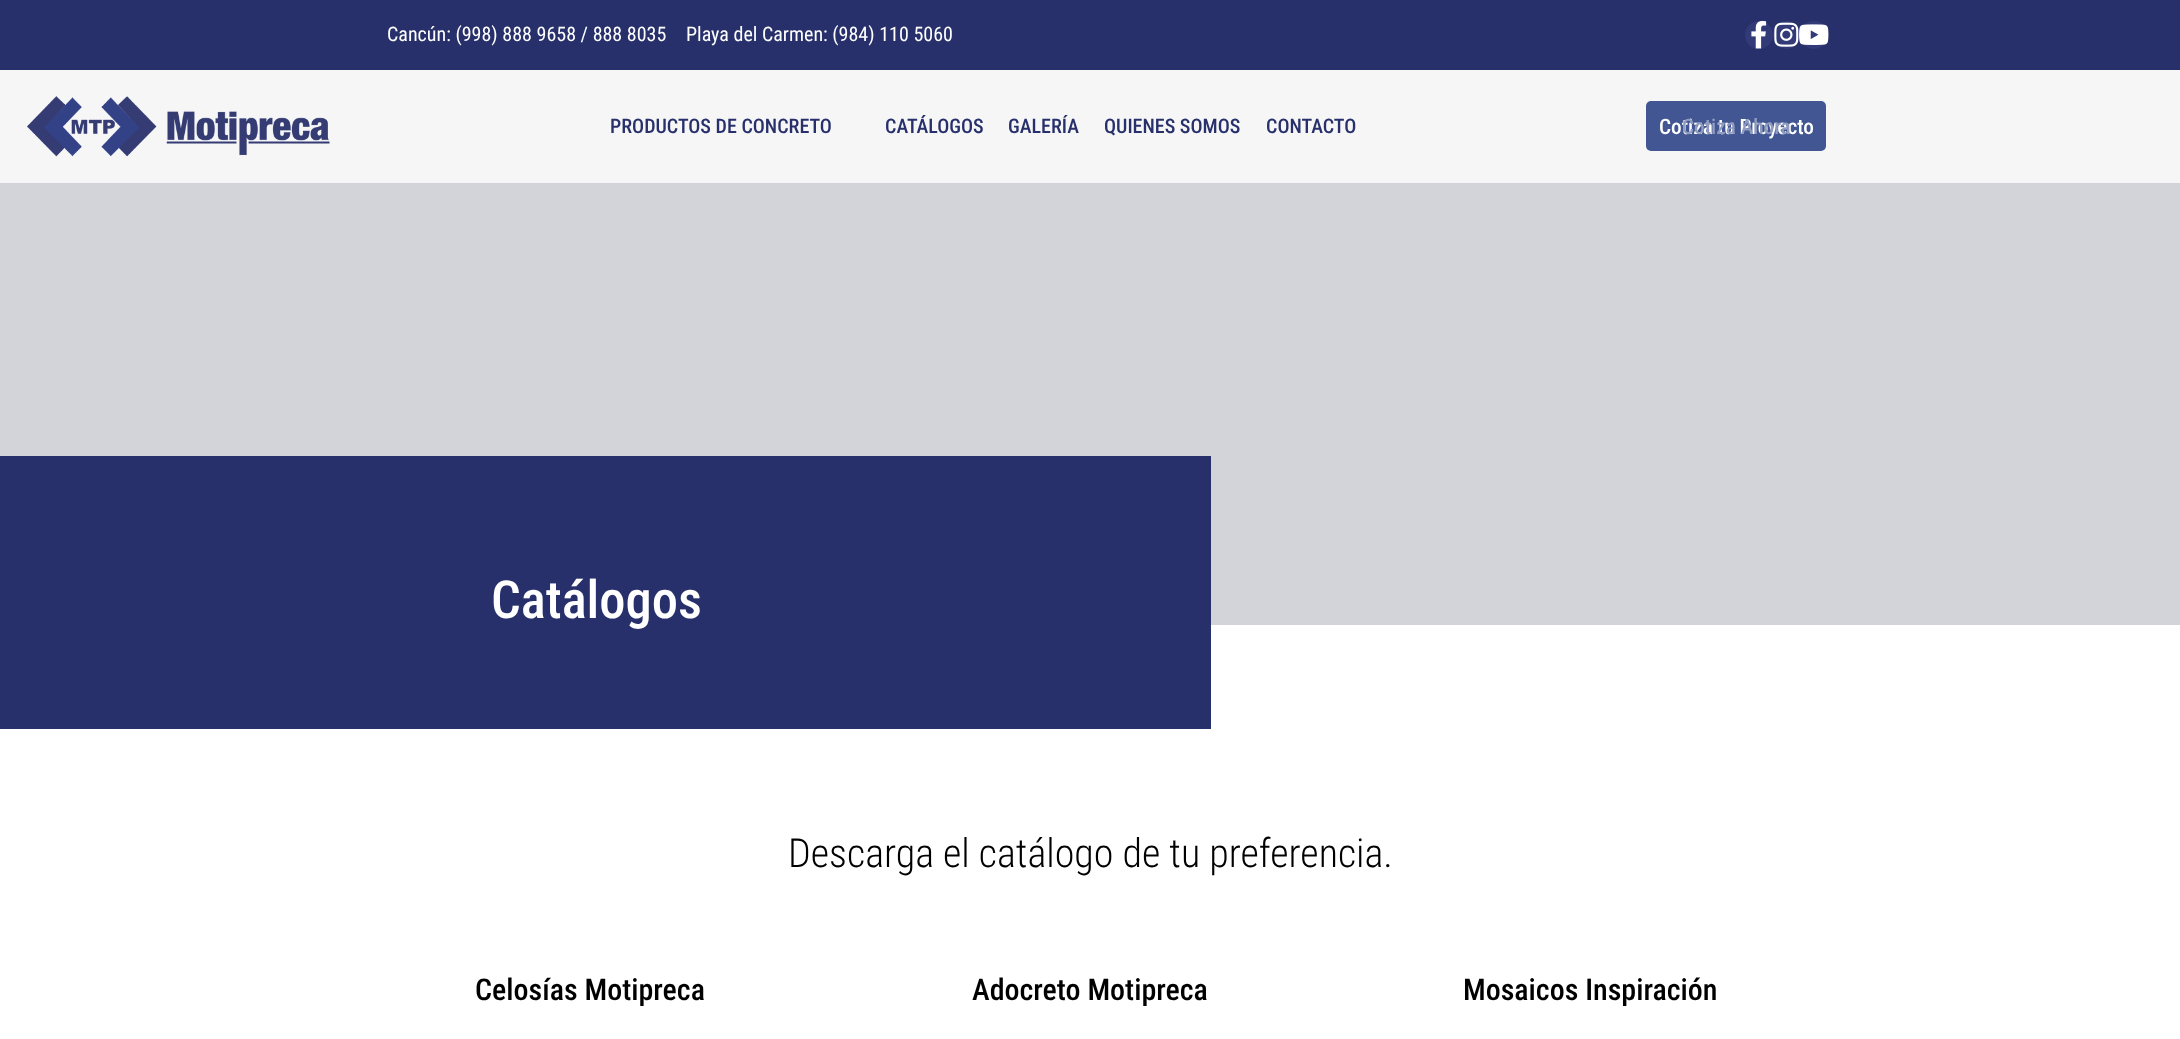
<svg xmlns="http://www.w3.org/2000/svg" xmlns:xlink="http://www.w3.org/1999/xlink" width="2180" height="1039" viewBox="0 0 2180 1039">
<style>
.cls-1{font:20px Roboto Condensed;fill:#ffffff}
.cls-2{font:500 20px Roboto Condensed;fill:#27306b}
.cls-3{font:500 21.25px Roboto Condensed;fill:#ffffff}
.cls-4{font:500 21.25px Roboto Condensed;fill:#909cbf}
.cls-5{font:500 52.5px Roboto Condensed;fill:#ffffff}
.cls-6{font:300 40px Roboto Condensed;fill:#000000}
.cls-7{font:500 30px Roboto Condensed;fill:#000000}
</style>
<rect width="100%" height="100%" fill="#ffffff"/>
<rect fill="#27306b" x="0" y="0" width="2180" height="70"/>
<circle fill="#323a77" cx="1759" cy="35" r="14"/>
<image xlink:href="image0.png" x="1751" y="20" width="16" height="29"/>
<rect fill="#323a77" x="1773" y="21" width="27" height="28" rx="13.5"/>
<image xlink:href="image1.png" x="1774" y="22" width="25" height="25"/>
<circle fill="#323a77" cx="1814" cy="35" r="14"/>
<image xlink:href="image2.png" x="1799" y="24" width="30" height="21"/>
<rect fill="#f6f6f7" x="0" y="70" width="2180" height="113"/>
<image xlink:href="image3.png" x="27" y="96" width="303" height="61"/>
<rect fill="#415692" x="1646" y="101" width="180" height="50" rx="5"/>
<rect fill="#d2d4d9" x="0" y="183" width="2180" height="442"/>
<rect fill="#27306b" x="0" y="456" width="1211" height="273"/>
<text class="cls-1" x="387" y="41">Cancún: (998) 888 9658 / 888 8035</text>
<text class="cls-1" x="686" y="41">Playa del Carmen: (984) 110 5060</text>
<text class="cls-2" x="610" y="133">PRODUCTOS DE CONCRETO</text>
<text class="cls-2" x="885" y="133">CATÁLOGOS</text>
<text class="cls-2" x="1008" y="133">GALERÍA</text>
<text class="cls-2" x="1104" y="133">QUIENES SOMOS</text>
<text class="cls-2" x="1266" y="133">CONTACTO</text>
<text class="cls-3" x="1659" y="134">Cotiza tu Proyecto</text>
<text class="cls-4" x="1682" y="134">Cotiza Ahora</text>
<text class="cls-5" x="491" y="618">Catálogos</text>
<text class="cls-6" x="788" y="867">Descarga el catálogo de tu preferencia.</text>
<text class="cls-7" x="475" y="1000">Celosías Motipreca</text>
<text class="cls-7" x="972" y="1000">Adocreto Motipreca</text>
<text class="cls-7" x="1463" y="1000">Mosaicos Inspiración</text>
</svg>
